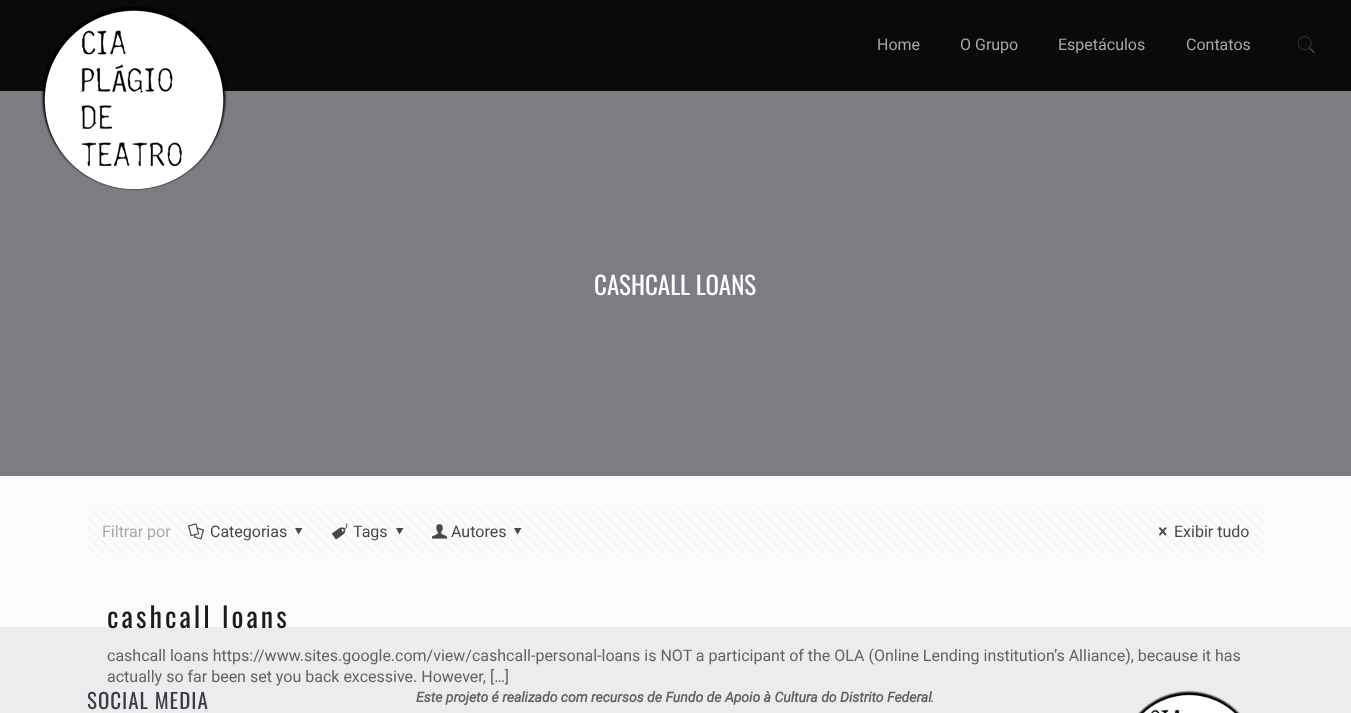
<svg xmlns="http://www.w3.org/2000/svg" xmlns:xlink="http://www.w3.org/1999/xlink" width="1351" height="713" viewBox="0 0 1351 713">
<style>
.cls-1{font:16px Roboto;fill:#a8a8a8}
.cls-2{font:25px Oswald;fill:#ffffff}
.cls-3{font:16px Roboto;fill:#46484a}
.cls-4{font:28px Oswald;letter-spacing:3px;fill:#1c1c1c}
.cls-5{font:16px Roboto;fill:#626262}
.cls-6{font:21px Oswald;letter-spacing:1px;fill:#3d3a41}
.cls-7{font:italic bold 14px Roboto;fill:#626262}
.cls-8{font:italic 14px Roboto;fill:#626262}
</style>
<rect width="100%" height="100%" fill="#fbfbfb"/>
<rect fill="#0a0a0a" x="0" y="0" width="1351" height="91"/>
<rect fill="#7c7c83" x="0" y="91" width="1351" height="385"/>
<image xlink:href="image0.png" x="41" y="6" width="186" height="185"/>
<image xlink:href="image1.png" x="1298" y="36" width="17" height="18"/>
<image xlink:href="image2.png" x="87" y="506" width="1177" height="51"/>
<image xlink:href="image3.png" x="188" y="523" width="16" height="17"/>
<path fill="#46484a" d="M302.5 528L298.5 534.5L295 528Z"/>
<image xlink:href="image4.png" x="332" y="523" width="16" height="17"/>
<path fill="#46484a" d="M403.5 528L399.5 534.5L396 528Z"/>
<image xlink:href="image5.png" x="432" y="524" width="16" height="15"/>
<path fill="#46484a" d="M521.5 528L517.5 534.5L514 528Z"/>
<image xlink:href="image6.png" x="1159" y="527" width="8" height="9"/>
<rect fill="#ebecee" x="0" y="627" width="1351" height="86"/>
<image xlink:href="image7.png" x="1138" y="690" width="102" height="23"/>
<rect fill="#000000" fill-opacity="0.08" x="1144" y="709" width="1" height="4"/>
<text class="cls-1" x="877" y="50">Home</text>
<text class="cls-1" x="960" y="50">O Grupo</text>
<text class="cls-1" x="1058" y="50">Espetáculos</text>
<text class="cls-1" x="1186" y="50">Contatos</text>
<text class="cls-2" x="594" y="295">CASHCALL LOANS</text>
<text class="cls-1" x="102" y="537">Filtrar por</text>
<text class="cls-3" x="210" y="537">Categorias</text>
<text class="cls-3" x="353" y="537">Tags</text>
<text class="cls-3" x="451" y="537">Autores</text>
<text class="cls-3" x="1174" y="537">Exibir tudo</text>
<text class="cls-4" x="107" y="628">cashcall loans</text>
<text class="cls-5"><tspan x="107" y="661">cashcall loans https://www.sites.google.com/view/cashcall-personal-loans is NOT a participant of the OLA (Online Lending institution’s Alliance), because it has</tspan><tspan x="107" y="682">actually so far been set you back excessive. However, […]</tspan></text>
<text class="cls-6" x="87" y="709">SOCIAL MEDIA</text>
<text class="cls-7" x="416" y="702">Este projeto é realizado com recursos de Fundo de Apoio à Cultura do Distrito Federal</text>
<text class="cls-8" x="931" y="702">.</text>
</svg>
